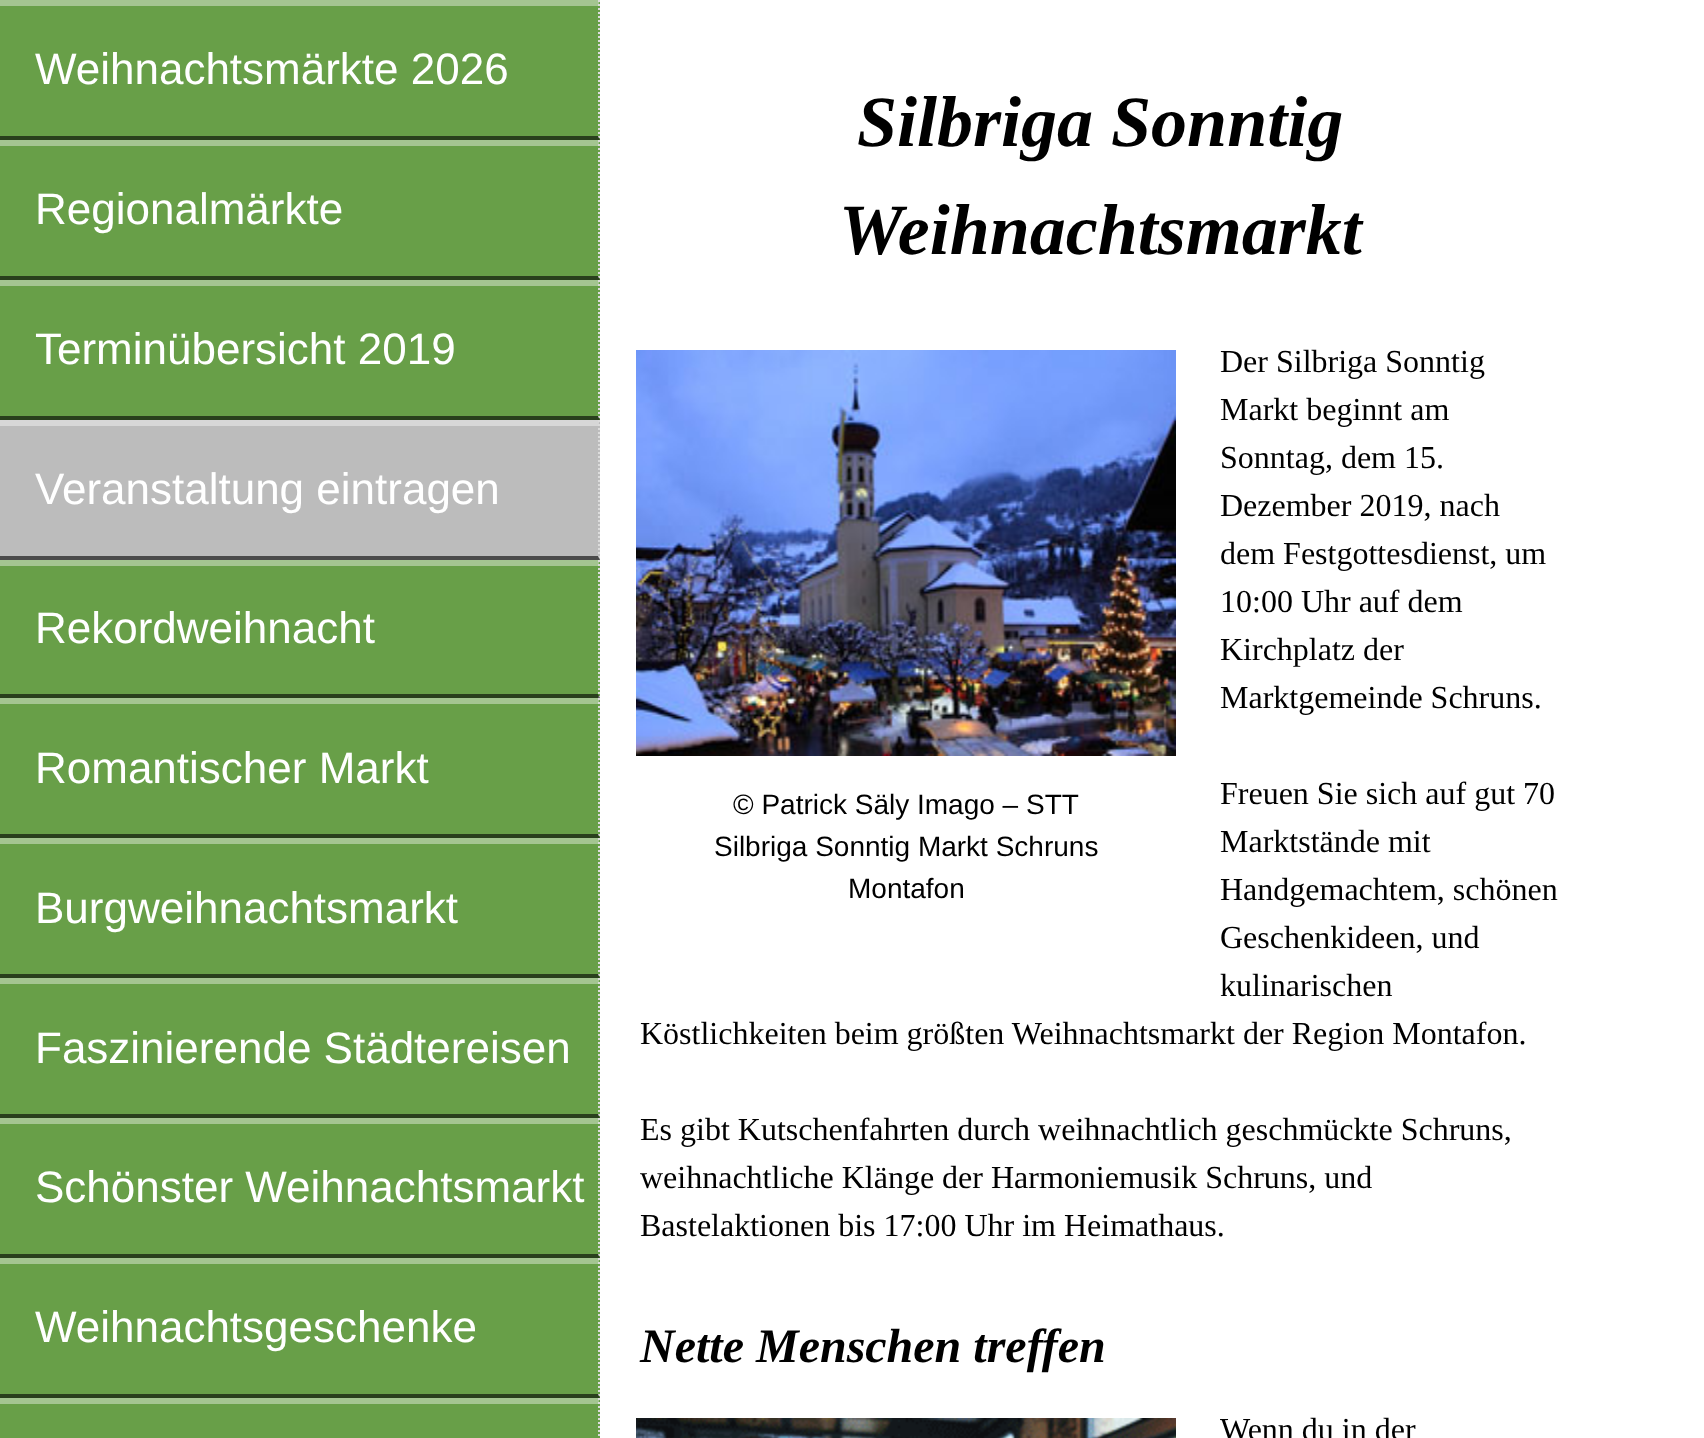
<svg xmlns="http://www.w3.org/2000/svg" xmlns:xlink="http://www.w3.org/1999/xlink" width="1704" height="1438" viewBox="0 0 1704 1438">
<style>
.cls-1{font:44px Liberation Sans;fill:#ffffff}
.cls-2{font:italic bold 72px Liberation Serif;fill:#000000}
.cls-3{font:32px Liberation Serif;fill:#000000}
.cls-4{font:28px Liberation Sans;fill:#000000}
.cls-5{font:italic bold 48px Liberation Serif;fill:#000000}
</style>
<rect width="100%" height="100%" fill="#ffffff"/>
<rect fill="#689f48" x="0" y="2" width="600" height="1436"/>
<path fill="#a4c591" d="M0 0H600L598 6H0Z"/>
<path fill="none" stroke="#dcdcdc" stroke-width="2" stroke-dasharray="2 2" d="M599 0V140"/>
<path fill="#000000" fill-opacity="0.6" d="M600 140H0V136H598Z"/>
<path fill="#a4c591" d="M0 140H600L598 146H0Z"/>
<path fill="none" stroke="#dcdcdc" stroke-width="2" stroke-dasharray="2 2" d="M599 140V280"/>
<path fill="#000000" fill-opacity="0.6" d="M600 280H0V276H598Z"/>
<path fill="#a4c591" d="M0 280H600L598 286H0Z"/>
<path fill="none" stroke="#dcdcdc" stroke-width="2" stroke-dasharray="2 2" d="M599 280V420"/>
<path fill="#000000" fill-opacity="0.6" d="M600 420H0V416H598Z"/>
<rect fill="#bcbcbc" x="0" y="422" width="600" height="138"/>
<path fill="#d7d7d7" d="M0 420H600L598 426H0Z"/>
<path fill="none" stroke="#dcdcdc" stroke-width="2" stroke-dasharray="2 2" d="M599 420V560"/>
<path fill="#000000" fill-opacity="0.6" d="M600 560H0V556H598Z"/>
<path fill="#a4c591" d="M0 560H600L598 566H0Z"/>
<path fill="none" stroke="#dcdcdc" stroke-width="2" stroke-dasharray="2 2" d="M599 560V698"/>
<path fill="#000000" fill-opacity="0.6" d="M600 698H0V694H598Z"/>
<path fill="#a4c591" d="M0 698H600L598 704H0Z"/>
<path fill="none" stroke="#dcdcdc" stroke-width="2" stroke-dasharray="2 2" d="M599 698V838"/>
<path fill="#000000" fill-opacity="0.6" d="M600 838H0V834H598Z"/>
<path fill="#a4c591" d="M0 838H600L598 844H0Z"/>
<path fill="none" stroke="#dcdcdc" stroke-width="2" stroke-dasharray="2 2" d="M599 838V978"/>
<path fill="#000000" fill-opacity="0.6" d="M600 978H0V974H598Z"/>
<path fill="#a4c591" d="M0 978H600L598 984H0Z"/>
<path fill="none" stroke="#dcdcdc" stroke-width="2" stroke-dasharray="2 2" d="M599 978V1118"/>
<path fill="#000000" fill-opacity="0.6" d="M600 1118H0V1114H598Z"/>
<path fill="#a4c591" d="M0 1118H600L598 1124H0Z"/>
<path fill="none" stroke="#dcdcdc" stroke-width="2" stroke-dasharray="2 2" d="M599 1118V1258"/>
<path fill="#000000" fill-opacity="0.6" d="M600 1258H0V1254H598Z"/>
<path fill="#a4c591" d="M0 1258H600L598 1264H0Z"/>
<path fill="none" stroke="#dcdcdc" stroke-width="2" stroke-dasharray="2 2" d="M599 1258V1398"/>
<path fill="#000000" fill-opacity="0.6" d="M600 1398H0V1394H598Z"/>
<path fill="#a4c591" d="M0 1398H600L598 1404H0Z"/>
<path fill="none" stroke="#dcdcdc" stroke-width="2" stroke-dasharray="2 2" d="M599 1398V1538"/>
<image xlink:href="image0.png" x="636" y="350" width="540" height="406"/>
<image xlink:href="image1.png" x="636" y="1418" width="540" height="20"/>
<text class="cls-1" x="35" y="84">Weihnachtsmärkte 2026</text>
<text class="cls-1" x="35" y="224">Regionalmärkte</text>
<text class="cls-1" x="35" y="364">Terminübersicht 2019</text>
<text class="cls-1" x="35" y="504">Veranstaltung eintragen</text>
<text class="cls-1" x="35" y="643">Rekordweihnacht</text>
<text class="cls-1" x="35" y="783">Romantischer Markt</text>
<text class="cls-1" x="35" y="923">Burgweihnachtsmarkt</text>
<text class="cls-1" x="35" y="1063">Faszinierende Städtereisen</text>
<text class="cls-1" x="35" y="1202">Schönster Weihnachtsmarkt</text>
<text class="cls-1" x="35" y="1342">Weihnachtsgeschenke</text>
<text class="cls-2" x="857" y="146">Silbriga Sonntig</text>
<text class="cls-2" x="839" y="254">Weihnachtsmarkt</text>
<text class="cls-3"><tspan x="1220" y="372">Der Silbriga Sonntig</tspan><tspan x="1220" y="420">Markt beginnt am</tspan><tspan x="1220" y="468">Sonntag, dem 15.</tspan><tspan x="1220" y="516">Dezember 2019, nach</tspan><tspan x="1220" y="564">dem Festgottesdienst, um</tspan><tspan x="1220" y="612">10:00 Uhr auf dem</tspan><tspan x="1220" y="660">Kirchplatz der</tspan><tspan x="1220" y="708">Marktgemeinde Schruns.</tspan></text>
<text class="cls-3"><tspan x="1220" y="804">Freuen Sie sich auf gut 70</tspan><tspan x="1220" y="852">Marktstände mit</tspan><tspan x="1220" y="900">Handgemachtem, schönen</tspan><tspan x="1220" y="948">Geschenkideen, und</tspan><tspan x="1220" y="996">kulinarischen</tspan></text>
<text class="cls-3" x="640" y="1044">Köstlichkeiten beim größten Weihnachtsmarkt der Region Montafon.</text>
<text class="cls-3"><tspan x="640" y="1140">Es gibt Kutschenfahrten durch weihnachtlich geschmückte Schruns,</tspan><tspan x="640" y="1188">weihnachtliche Klänge der Harmoniemusik Schruns, und</tspan><tspan x="640" y="1236">Bastelaktionen bis 17:00 Uhr im Heimathaus.</tspan></text>
<text class="cls-4" x="733" y="814">© Patrick Säly Imago – STT</text>
<text class="cls-4" x="714" y="856">Silbriga Sonntig Markt Schruns</text>
<text class="cls-4" x="848" y="898">Montafon</text>
<text class="cls-5" x="640" y="1362">Nette Menschen treffen</text>
<text class="cls-3" x="1220" y="1440">Wenn du in der</text>
</svg>
